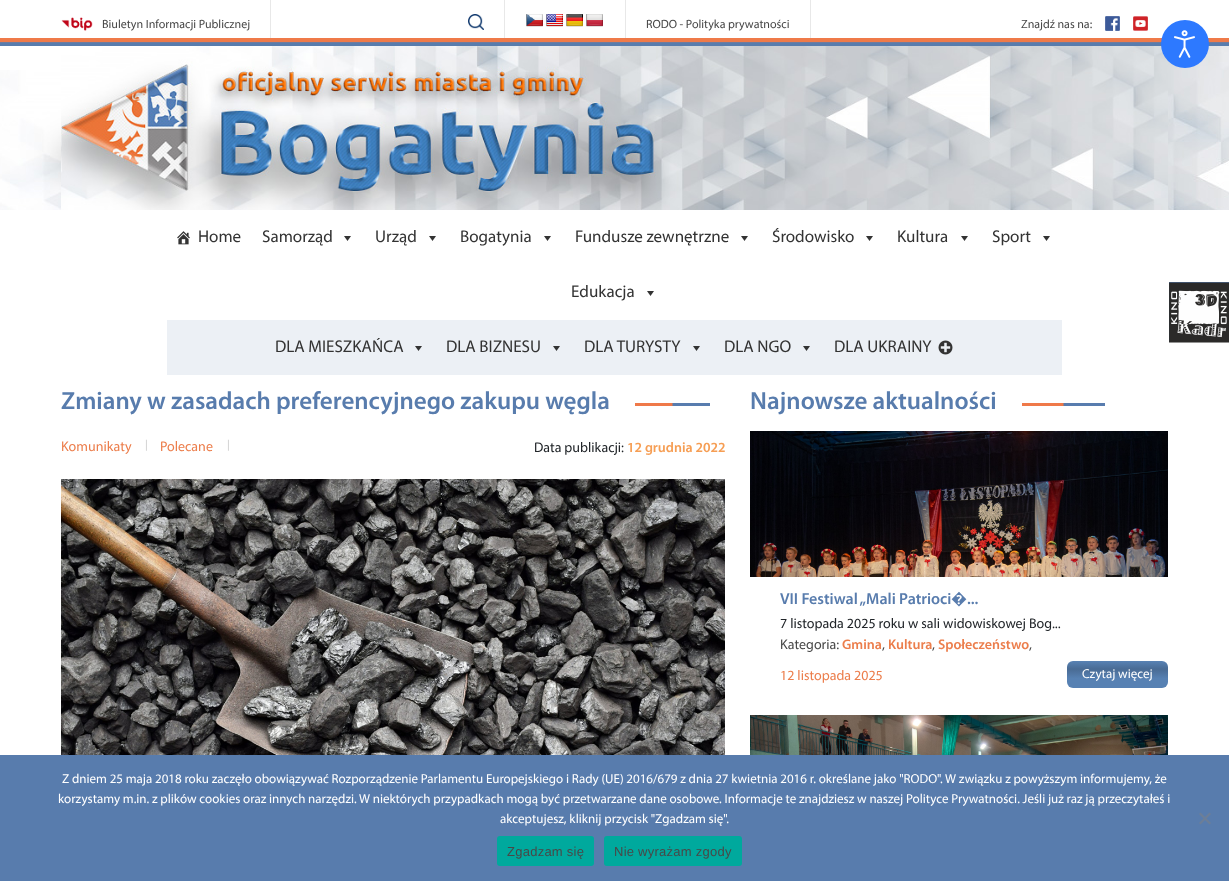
<svg xmlns="http://www.w3.org/2000/svg" xmlns:xlink="http://www.w3.org/1999/xlink" width="1229" height="881" viewBox="0 0 1229 881">
<style>
.cls-1{font:12px Myriad;fill:#484848}
.cls-2{font:17px Myriad;fill:#333333}
.cls-3{font:600 25px Myriad;fill:#587cad}
.cls-4{font:14px Myriad;fill:#ec7e4c}
.cls-5{font:11px Myriad;fill:#c8c8c8}
.cls-6{font:14px Myriad;fill:#212529}
.cls-7{font:600 14px Myriad;fill:#f69e54}
.cls-8{font:600 16px Myriad;fill:#587cad}
.cls-9{font:500 16px Noto Sans;fill:#587cad}
.cls-10{font:14px Myriad;fill:#484848}
.cls-11{font:600 14px Myriad;fill:#ec7e4c}
.cls-12{font:13px Myriad;fill:#ffffff}
.cls-13{font:13px Liberation Sans;letter-spacing:0.25px;fill:#484848}
</style>
<defs>
<linearGradient id="g1" gradientUnits="userSpaceOnUse" x1="1118" y1="661" x2="1118" y2="688"><stop offset="0" stop-color="#5882b4"/><stop offset="0.3" stop-color="#496b94"/><stop offset="0.65" stop-color="#5781b3"/><stop offset="1" stop-color="#5781b3"/></linearGradient>
</defs>
<rect width="100%" height="100%" fill="#ffffff"/>
<rect fill="#e8e8e8" x="270" y="0" width="1" height="38"/>
<image xlink:href="image0.png" x="61" y="17" width="32" height="14"/>
<rect fill="#e8e8e8" x="504" y="0" width="1" height="38"/>
<image xlink:href="image1.png" x="468" y="14" width="16" height="16"/>
<rect fill="#e8e8e8" x="625" y="0" width="1" height="38"/>
<image xlink:href="image2.png" x="526" y="14" width="17" height="13"/>
<image xlink:href="image3.png" x="546" y="14" width="17" height="13"/>
<image xlink:href="image4.png" x="566" y="14" width="17" height="13"/>
<image xlink:href="image5.png" x="586" y="14" width="17" height="13"/>
<rect fill="#e8e8e8" x="810" y="0" width="1" height="38"/>
<image xlink:href="image6.png" x="1105" y="16" width="15" height="15"/>
<image xlink:href="image7.png" x="1133" y="16" width="15" height="15"/>
<image xlink:href="image8.png" x="0" y="38" width="1229" height="8"/>
<image xlink:href="image9.png" x="0" y="70" width="61" height="140"/>
<image xlink:href="image10.png" x="61" y="46" width="1107" height="164"/>
<image xlink:href="image11.png" x="1168" y="46" width="61" height="164"/>
<image xlink:href="image12.png" x="177" y="231" width="13" height="14"/>
<path fill="#333333" d="M351 236L347.5 241L344 236Z"/>
<path fill="#333333" d="M436 236L432.5 241L429 236Z"/>
<path fill="#333333" d="M551 236L547.5 241L544 236Z"/>
<path fill="#333333" d="M748 236L744.5 241L741 236Z"/>
<path fill="#333333" d="M873 236L869.5 241L866 236Z"/>
<path fill="#333333" d="M968 236L964.5 241L961 236Z"/>
<path fill="#333333" d="M1050 236L1046.5 241L1043 236Z"/>
<path fill="#333333" d="M654 291L650.5 296L647 291Z"/>
<rect fill="#ecf0f5" x="167" y="320" width="895" height="55"/>
<path fill="#333333" d="M422 346L418.5 351L415 346Z"/>
<path fill="#333333" d="M560 346L556.5 351L553 346Z"/>
<path fill="#333333" d="M700 346L696.5 351L693 346Z"/>
<path fill="#333333" d="M810 346L806.5 351L803 346Z"/>
<image xlink:href="image13.png" x="938" y="340" width="15" height="15"/>
<circle fill="#2d79ff" cx="1185" cy="44" r="24"/>
<image xlink:href="image14.png" x="1174" y="30" width="21" height="28"/>
<rect fill="#587cad" x="1169" y="282" width="60" height="60"/>
<image xlink:href="image15.png" x="1169" y="282" width="60" height="61"/>
<image xlink:href="image16.png" x="635" y="403" width="75" height="3"/>
<image xlink:href="image17.png" x="61" y="479" width="664" height="276"/>
<image xlink:href="image18.png" x="1022" y="403" width="83" height="3"/>
<image xlink:href="image19.png" x="750" y="431" width="418" height="146"/>
<rect fill="url(#g1)" x="1067" y="661" width="101" height="27" rx="6"/>
<image xlink:href="image20.png" x="750" y="715" width="418" height="40"/>
<rect fill="#587cad" x="0" y="755" width="1229" height="126"/>
<path fill="#6c7e97" d="M1209.5 812.5L1211 814L1200.5 824.5L1199 823Z"/>
<path fill="#6c7e97" d="M1199 814L1200.5 812.5L1211 823L1209.5 824.5Z"/>
<rect fill="#00a99d" x="497" y="836" width="97" height="30" rx="3"/>
<rect fill="#00a99d" x="604" y="836" width="138" height="30" rx="3"/>
<text class="cls-1" x="102" y="28">Biuletyn Informacji Publicznej</text>
<text class="cls-1" x="646" y="28">RODO - Polityka prywatności</text>
<text class="cls-1" x="1021" y="28">Znajdź nas na:</text>
<text class="cls-2" x="198" y="242">Home</text>
<text class="cls-2" x="262" y="242">Samorząd</text>
<text class="cls-2" x="375" y="242">Urząd</text>
<text class="cls-2" x="460" y="242">Bogatynia</text>
<text class="cls-2" x="575" y="242">Fundusze zewnętrzne</text>
<text class="cls-2" x="772" y="242">Środowisko</text>
<text class="cls-2" x="897" y="242">Kultura</text>
<text class="cls-2" x="992" y="242">Sport</text>
<text class="cls-2" x="571" y="297">Edukacja</text>
<text class="cls-2" x="275" y="352">DLA MIESZKAŃCA</text>
<text class="cls-2" x="446" y="352">DLA BIZNESU</text>
<text class="cls-2" x="584" y="352">DLA TURYSTY</text>
<text class="cls-2" x="724" y="352">DLA NGO</text>
<text class="cls-2" x="834" y="352">DLA UKRAINY</text>
<text class="cls-3" x="61" y="409">Zmiany w zasadach preferencyjnego zakupu węgla</text>
<text class="cls-4" x="61" y="451">Komunikaty</text>
<text class="cls-5" x="145" y="448">|</text>
<text class="cls-4" x="160" y="451">Polecane</text>
<text class="cls-5" x="227" y="448">|</text>
<text class="cls-6" x="534" y="452">Data publikacji:</text>
<text class="cls-7" x="627" y="452">12 grudnia 2022</text>
<text class="cls-3" x="750" y="409">Najnowsze aktualności</text>
<text class="cls-8" x="780" y="604">VII Festiwal „Mali Patrioci</text>
<text class="cls-9" x="951" y="604">�</text>
<text class="cls-8" x="967" y="604">...</text>
<text class="cls-6" x="780" y="628">7 listopada 2025 roku w sali widowiskowej Bog...</text>
<text class="cls-10" x="780" y="649">Kategoria:</text>
<text class="cls-11" x="842" y="649">Gmina</text>
<text class="cls-10" x="882" y="649">,</text>
<text class="cls-11" x="888" y="649">Kultura</text>
<text class="cls-10" x="932" y="649">,</text>
<text class="cls-11" x="938" y="649">Społeczeństwo</text>
<text class="cls-10" x="1029" y="649">,</text>
<text class="cls-4" x="780" y="680">12 listopada 2025</text>
<text class="cls-12" x="1082" y="678">Czytaj więcej</text>
<text class="cls-12" x="62" y="783">Z dniem 25 maja 2018 roku zaczęło obowiązywać Rozporządzenie Parlamentu Europejskiego i Rady (UE) 2016/679 z dnia 27 kwietnia 2016 r. określane jako "RODO". W związku z powyższym informujemy, że</text>
<text class="cls-12" x="58" y="803">korzystamy m.in. z plików cookies oraz innych narzędzi. W niektórych przypadkach mogą być przetwarzane dane osobowe. Informacje te znajdziesz w naszej Polityce Prywatności. Jeśli już raz ją przeczytałeś i</text>
<text class="cls-12" x="500" y="823">akceptujesz, kliknij przycisk "Zgadzam się".</text>
<text class="cls-13" x="507" y="856">Zgadzam się</text>
<text class="cls-13" x="614" y="856">Nie wyrażam zgody</text>
</svg>
